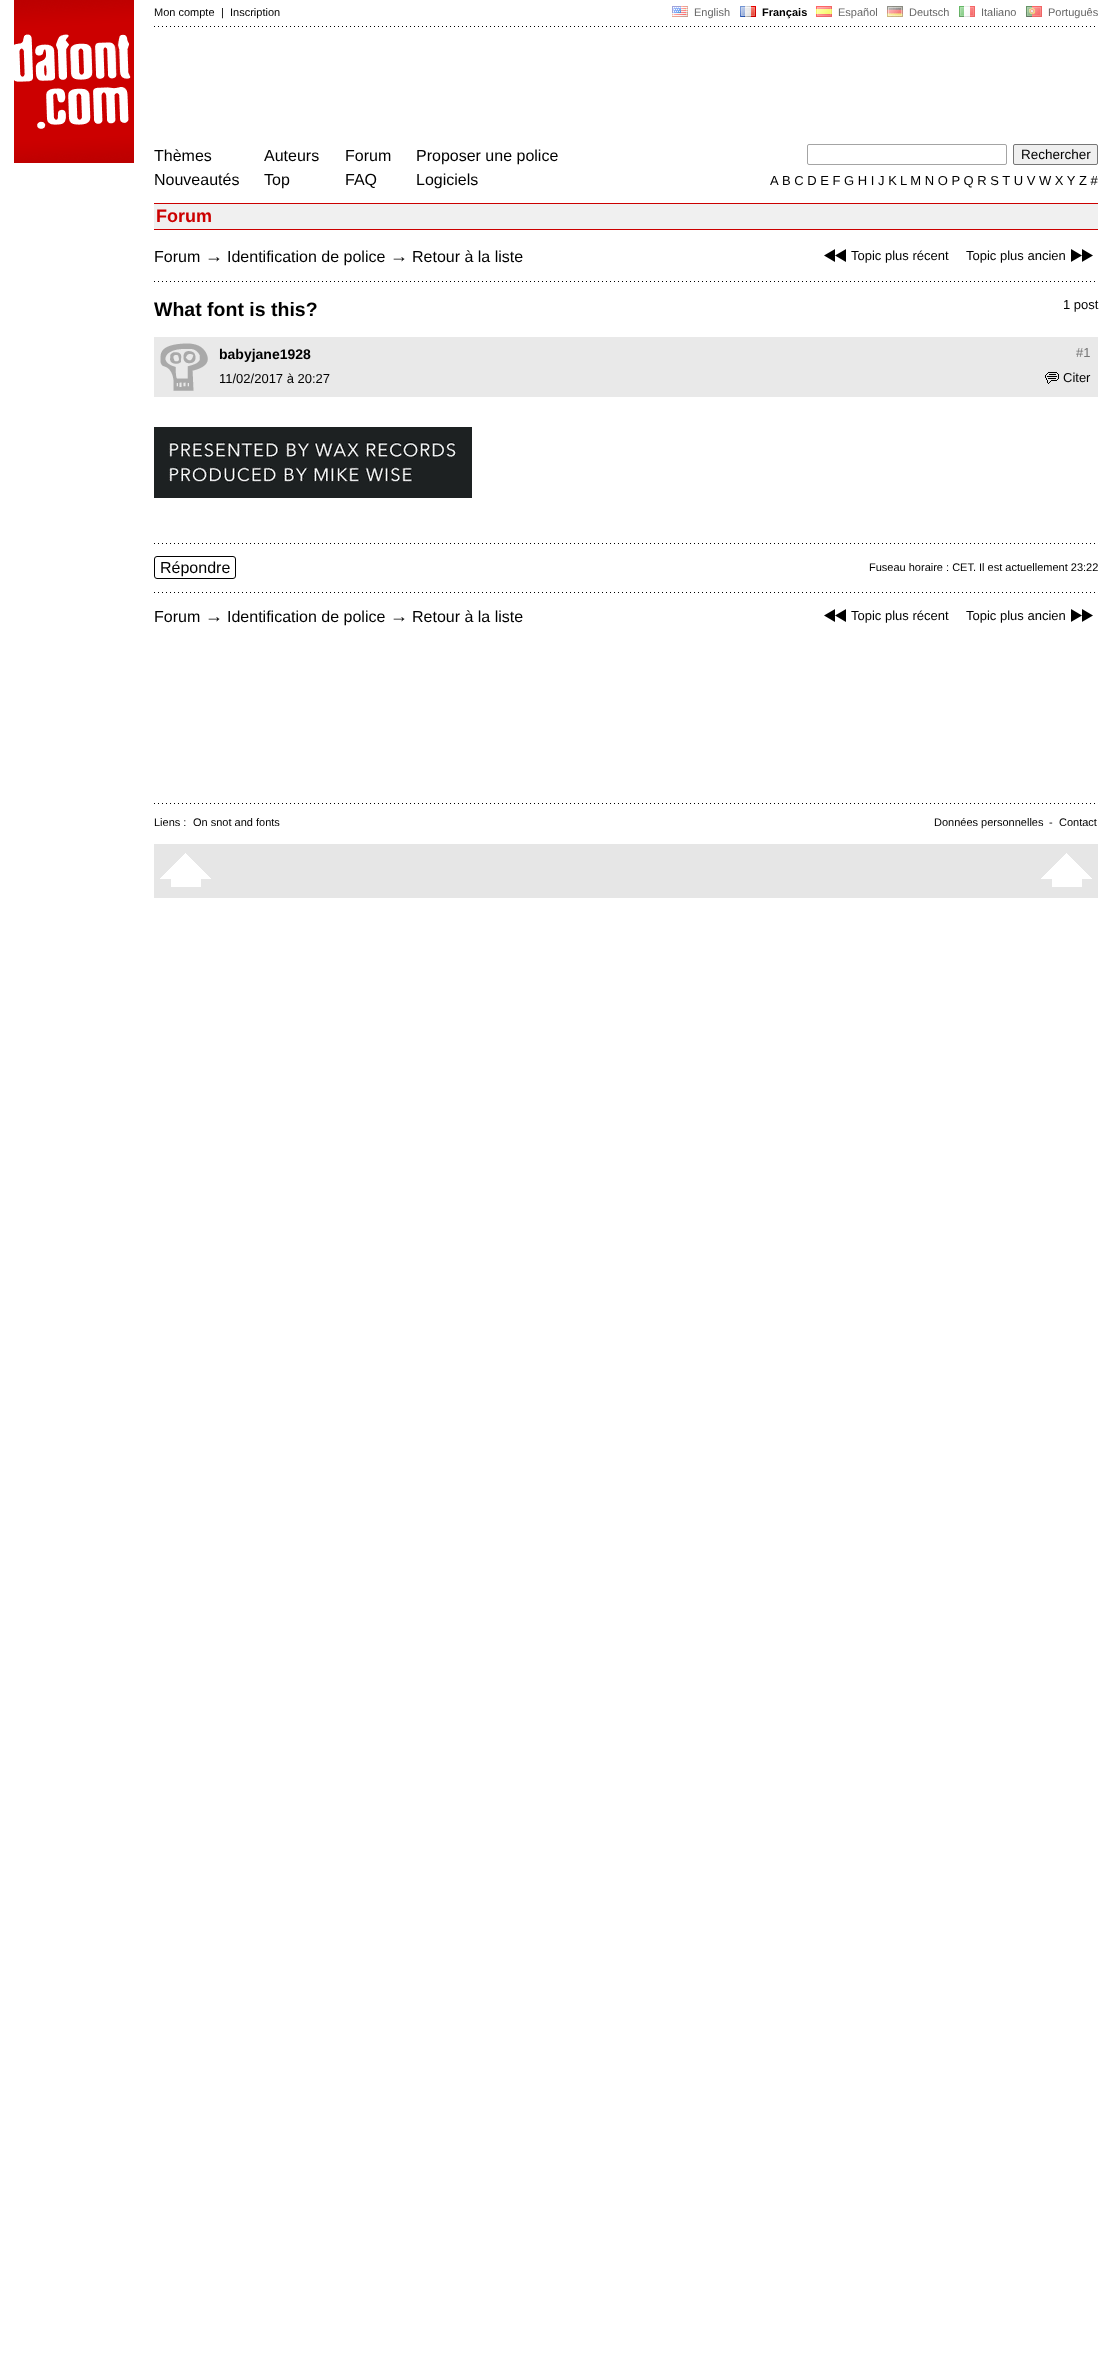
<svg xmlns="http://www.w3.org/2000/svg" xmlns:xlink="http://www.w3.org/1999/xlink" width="1112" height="2373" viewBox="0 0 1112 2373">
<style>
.cls-1{font:11px Liberation Sans;fill:#000000}
.cls-2{font:11px Liberation Sans;fill:#666666}
.cls-3{font:bold 11px Liberation Sans;fill:#000000}
.cls-4{font:16px Liberation Sans;fill:#000000}
.cls-5{font:13.5px Liberation Sans;fill:#000000}
.cls-6{font:13px Liberation Sans;fill:#000000}
.cls-7{font:bold 18px Liberation Sans;fill:#cc0000}
.cls-8{font:18px Liberation Sans;fill:#000000}
.cls-9{font:bold 19.5px Liberation Sans;fill:#000000}
.cls-10{font:bold 14px Liberation Sans;fill:#000000}
.cls-11{font:13px Liberation Sans;fill:#777777}
</style>
<rect width="100%" height="100%" fill="#ffffff"/>
<image xlink:href="image0.png" x="14" y="0" width="120" height="163"/>
<image xlink:href="image1.png" x="672" y="6" width="16" height="11"/>
<image xlink:href="image2.png" x="740" y="6" width="16" height="11"/>
<image xlink:href="image3.png" x="816" y="6" width="16" height="11"/>
<image xlink:href="image4.png" x="887" y="6" width="16" height="11"/>
<image xlink:href="image5.png" x="959" y="6" width="16" height="11"/>
<image xlink:href="image6.png" x="1026" y="6" width="16" height="11"/>
<image xlink:href="image7.png" x="154" y="26" width="941" height="1"/>
<rect fill="none" stroke="#a4a4a4" x="807.5" y="144.5" width="199" height="20" rx="1.5"/>
<rect fill="#efefef" stroke="#767676" x="1013.5" y="144.5" width="84" height="20" rx="1.5"/>
<rect fill="#f0f0f0" x="154" y="204" width="944" height="25"/>
<rect fill="#cc0000" x="154" y="203" width="944" height="1"/>
<rect fill="#cc0000" x="154" y="229" width="944" height="1"/>
<image xlink:href="image8.png" x="824" y="249" width="22" height="13"/>
<image xlink:href="image9.png" x="1071" y="249" width="22" height="13"/>
<image xlink:href="image7.png" x="154" y="281" width="941" height="1"/>
<rect fill="#e9e9e9" x="154" y="337" width="944" height="60"/>
<image xlink:href="image10.png" x="160" y="343" width="48" height="48"/>
<image xlink:href="image11.png" x="1045" y="372" width="14" height="12"/>
<image xlink:href="image12.png" x="154" y="427" width="318" height="71"/>
<image xlink:href="image7.png" x="154" y="543" width="941" height="1"/>
<rect fill="none" stroke="#000000" x="154.5" y="556.5" width="81" height="22" rx="2.5"/>
<image xlink:href="image7.png" x="154" y="592" width="941" height="1"/>
<image xlink:href="image8.png" x="824" y="609" width="22" height="13"/>
<image xlink:href="image9.png" x="1071" y="609" width="22" height="13"/>
<image xlink:href="image7.png" x="154" y="803" width="941" height="1"/>
<rect fill="#e6e6e6" x="154" y="844" width="944" height="54"/>
<image xlink:href="image13.png" x="160" y="853" width="51" height="34"/>
<image xlink:href="image13.png" x="1041" y="853" width="51" height="34"/>
<text class="cls-1" x="154" y="16">Mon compte</text>
<text class="cls-1" x="221" y="16">|</text>
<text class="cls-1" x="230" y="16">Inscription</text>
<text class="cls-2" x="694" y="16">English</text>
<text class="cls-3" x="762" y="16">Français</text>
<text class="cls-2" x="838" y="16">Español</text>
<text class="cls-2" x="909" y="16">Deutsch</text>
<text class="cls-2" x="981" y="16">Italiano</text>
<text class="cls-2" x="1048" y="16">Português</text>
<text class="cls-4"><tspan x="154" y="161">Thèmes</tspan><tspan x="154" y="185">Nouveautés</tspan></text>
<text class="cls-4"><tspan x="264" y="161">Auteurs</tspan><tspan x="264" y="185">Top</tspan></text>
<text class="cls-4"><tspan x="345" y="161">Forum</tspan><tspan x="345" y="185">FAQ</tspan></text>
<text class="cls-4"><tspan x="416" y="161">Proposer une police</tspan><tspan x="416" y="185">Logiciels</tspan></text>
<text class="cls-5" x="1021" y="159">Rechercher</text>
<text class="cls-6" x="770" y="185">A</text>
<text class="cls-6" x="782" y="185">B C D E F G H I J K</text>
<text class="cls-6" x="900" y="185">L M N O P Q R S T U V W X Y Z #</text>
<text class="cls-7" x="156" y="222">Forum</text>
<text class="cls-4" x="154" y="262">Forum</text>
<text class="cls-8" x="205" y="262">→</text>
<text class="cls-4" x="227" y="262">Identification de police</text>
<text class="cls-8" x="390" y="262">→</text>
<text class="cls-4" x="412" y="262">Retour à la liste</text>
<text class="cls-6" x="851" y="260">Topic plus récent</text>
<text class="cls-6" x="966" y="260">Topic plus ancien</text>
<text class="cls-9" x="154" y="316">What font is this?</text>
<text class="cls-6" x="1063" y="309">1 post</text>
<text class="cls-10" x="219" y="359">babyjane1928</text>
<text class="cls-11" x="1076" y="357">#1</text>
<text class="cls-6" x="219" y="383">11/02/2017 à 20:27</text>
<text class="cls-6" x="1063" y="382">Citer</text>
<text class="cls-4" x="160" y="573">Répondre</text>
<text class="cls-1" x="869" y="571">Fuseau horaire : CET. Il est actuellement 23:22</text>
<text class="cls-4" x="154" y="622">Forum</text>
<text class="cls-8" x="205" y="622">→</text>
<text class="cls-4" x="227" y="622">Identification de police</text>
<text class="cls-8" x="390" y="622">→</text>
<text class="cls-4" x="412" y="622">Retour à la liste</text>
<text class="cls-6" x="851" y="620">Topic plus récent</text>
<text class="cls-6" x="966" y="620">Topic plus ancien</text>
<text class="cls-1" x="154" y="826">Liens :</text>
<text class="cls-1" x="193" y="826">On snot and fonts</text>
<text class="cls-1" x="934" y="826">Données personnelles</text>
<text class="cls-1" x="1049" y="826">-</text>
<text class="cls-1" x="1059" y="826">Contact</text>
</svg>
